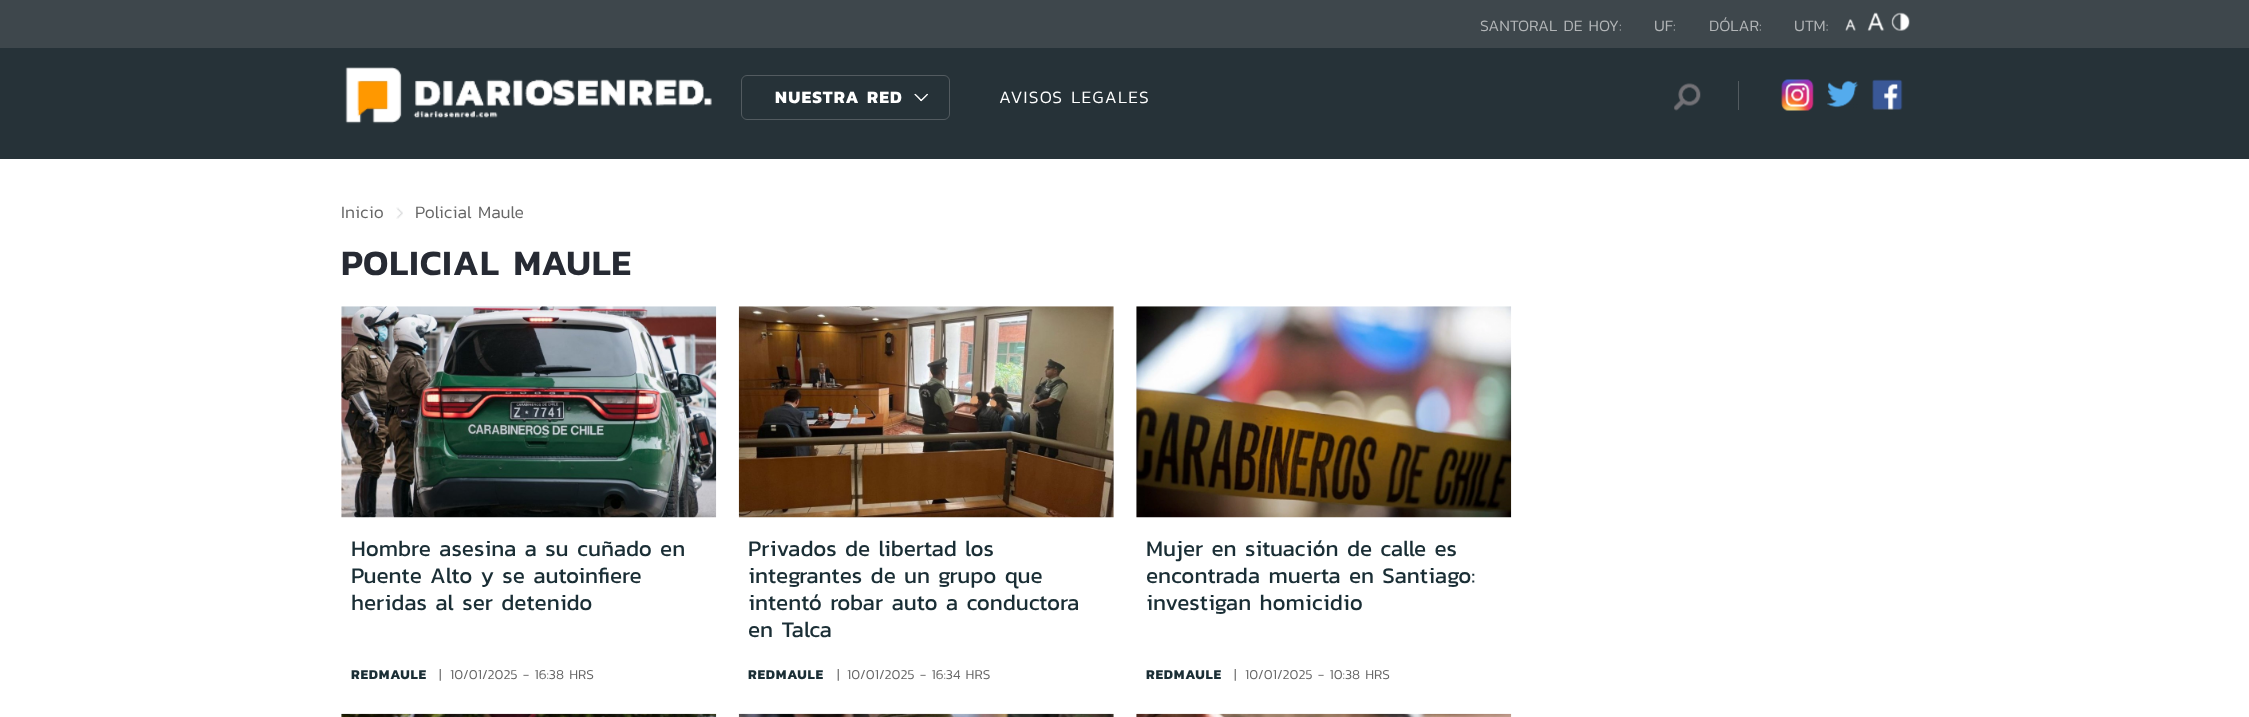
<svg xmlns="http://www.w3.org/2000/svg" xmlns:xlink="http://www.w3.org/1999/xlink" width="2249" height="717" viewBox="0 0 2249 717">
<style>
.cls-1{font:300 16px Kanit;fill:#b2b5b7}
.cls-2{font:bold 17.5px Kanit;letter-spacing:1.25px;fill:#ffffff}
.cls-3{font:300 17.5px Kanit;letter-spacing:1.25px;fill:#ffffff}
.cls-4{font:300 17.5px Kanit;fill:#666666}
.cls-5{font:600 36px Kanit;letter-spacing:1px;fill:#262a33}
.cls-6{font:22.5px Kanit;fill:#1a2e35}
.cls-7{font:bold 13.75px Kanit;letter-spacing:0.75px;fill:#1a2e35}
.cls-8{font:300 13.75px Kanit;letter-spacing:0.75px;fill:#666666}
.cls-9{font:300 13.75px Kanit;fill:#666666}
</style>
<rect width="100%" height="100%" fill="#ffffff"/>
<rect fill="#263238" x="0" y="48" width="2249" height="111"/>
<rect fill="#3e474c" x="0" y="0" width="2249" height="48"/>
<image xlink:href="image0.png" x="1845" y="19" width="11" height="12"/>
<image xlink:href="image1.png" x="1867" y="12" width="18" height="19"/>
<image xlink:href="image2.png" x="1891" y="12" width="19" height="19"/>
<image xlink:href="image3.png" x="345" y="67" width="367" height="57"/>
<image xlink:href="image4.png" x="914" y="93" width="14" height="9"/>
<rect fill="none" stroke="#535b60" x="741.5" y="75.5" width="208" height="44" rx="5.5"/>
<image xlink:href="image5.png" x="1674" y="83" width="27" height="28"/>
<rect fill="#535b60" x="1738" y="81" width="1" height="29"/>
<image xlink:href="image6.png" x="1781" y="79" width="33" height="32"/>
<image xlink:href="image7.png" x="1827" y="80" width="32" height="28"/>
<image xlink:href="image8.png" x="1872" y="79" width="31" height="31"/>
<image xlink:href="image9.png" x="396" y="207" width="7" height="12"/>
<image xlink:href="image10.png" x="341" y="306" width="376" height="212"/>
<image xlink:href="image11.png" x="738" y="306" width="376" height="212"/>
<image xlink:href="image12.png" x="1136" y="306" width="376" height="212"/>
<image xlink:href="image13.png" x="341" y="713" width="376" height="4"/>
<image xlink:href="image14.png" x="738" y="713" width="376" height="4"/>
<image xlink:href="image15.png" x="1136" y="713" width="376" height="4"/>
<text class="cls-1" x="1480" y="31">SANTORAL DE HOY:</text>
<text class="cls-1" x="1654" y="31">UF:</text>
<text class="cls-1" x="1709" y="31">DÓLAR:</text>
<text class="cls-1" x="1794" y="31">UTM:</text>
<text class="cls-2" x="775" y="103">NUESTRA RED</text>
<text class="cls-3" x="999" y="103">AVISOS LEGALES</text>
<text class="cls-4" x="341" y="218">Inicio</text>
<text class="cls-4" x="415" y="218">Policial</text>
<text class="cls-4" x="478" y="218">Maule</text>
<text class="cls-5" x="341" y="275">POLICIAL MAULE</text>
<text class="cls-6"><tspan x="351" y="556">Hombre asesina a su cuñado en</tspan><tspan x="351" y="583">Puente Alto y se autoinfiere</tspan><tspan x="351" y="610">heridas al ser detenido</tspan></text>
<text class="cls-7" x="351" y="679">REDMAULE</text>
<text class="cls-8" x="439" y="679">|</text>
<text class="cls-9" x="450" y="679">10/01/2025 - 16:38 HRS</text>
<text class="cls-6"><tspan x="748" y="556">Privados de libertad los</tspan><tspan x="748" y="583">integrantes de un grupo que</tspan><tspan x="748" y="610">intentó robar auto a conductora</tspan><tspan x="748" y="637">en Talca</tspan></text>
<text class="cls-7" x="748" y="679">REDMAULE</text>
<text class="cls-8" x="837" y="679">|</text>
<text class="cls-9" x="847" y="679">10/01/2025 - 16:34 HRS</text>
<text class="cls-6"><tspan x="1146" y="556">Mujer en situación de calle es</tspan><tspan x="1146" y="583">encontrada muerta en Santiago:</tspan><tspan x="1146" y="610">investigan homicidio</tspan></text>
<text class="cls-7" x="1146" y="679">REDMAULE</text>
<text class="cls-8" x="1234" y="679">|</text>
<text class="cls-9" x="1245" y="679">10/01/2025 - 10:38 HRS</text>
</svg>
